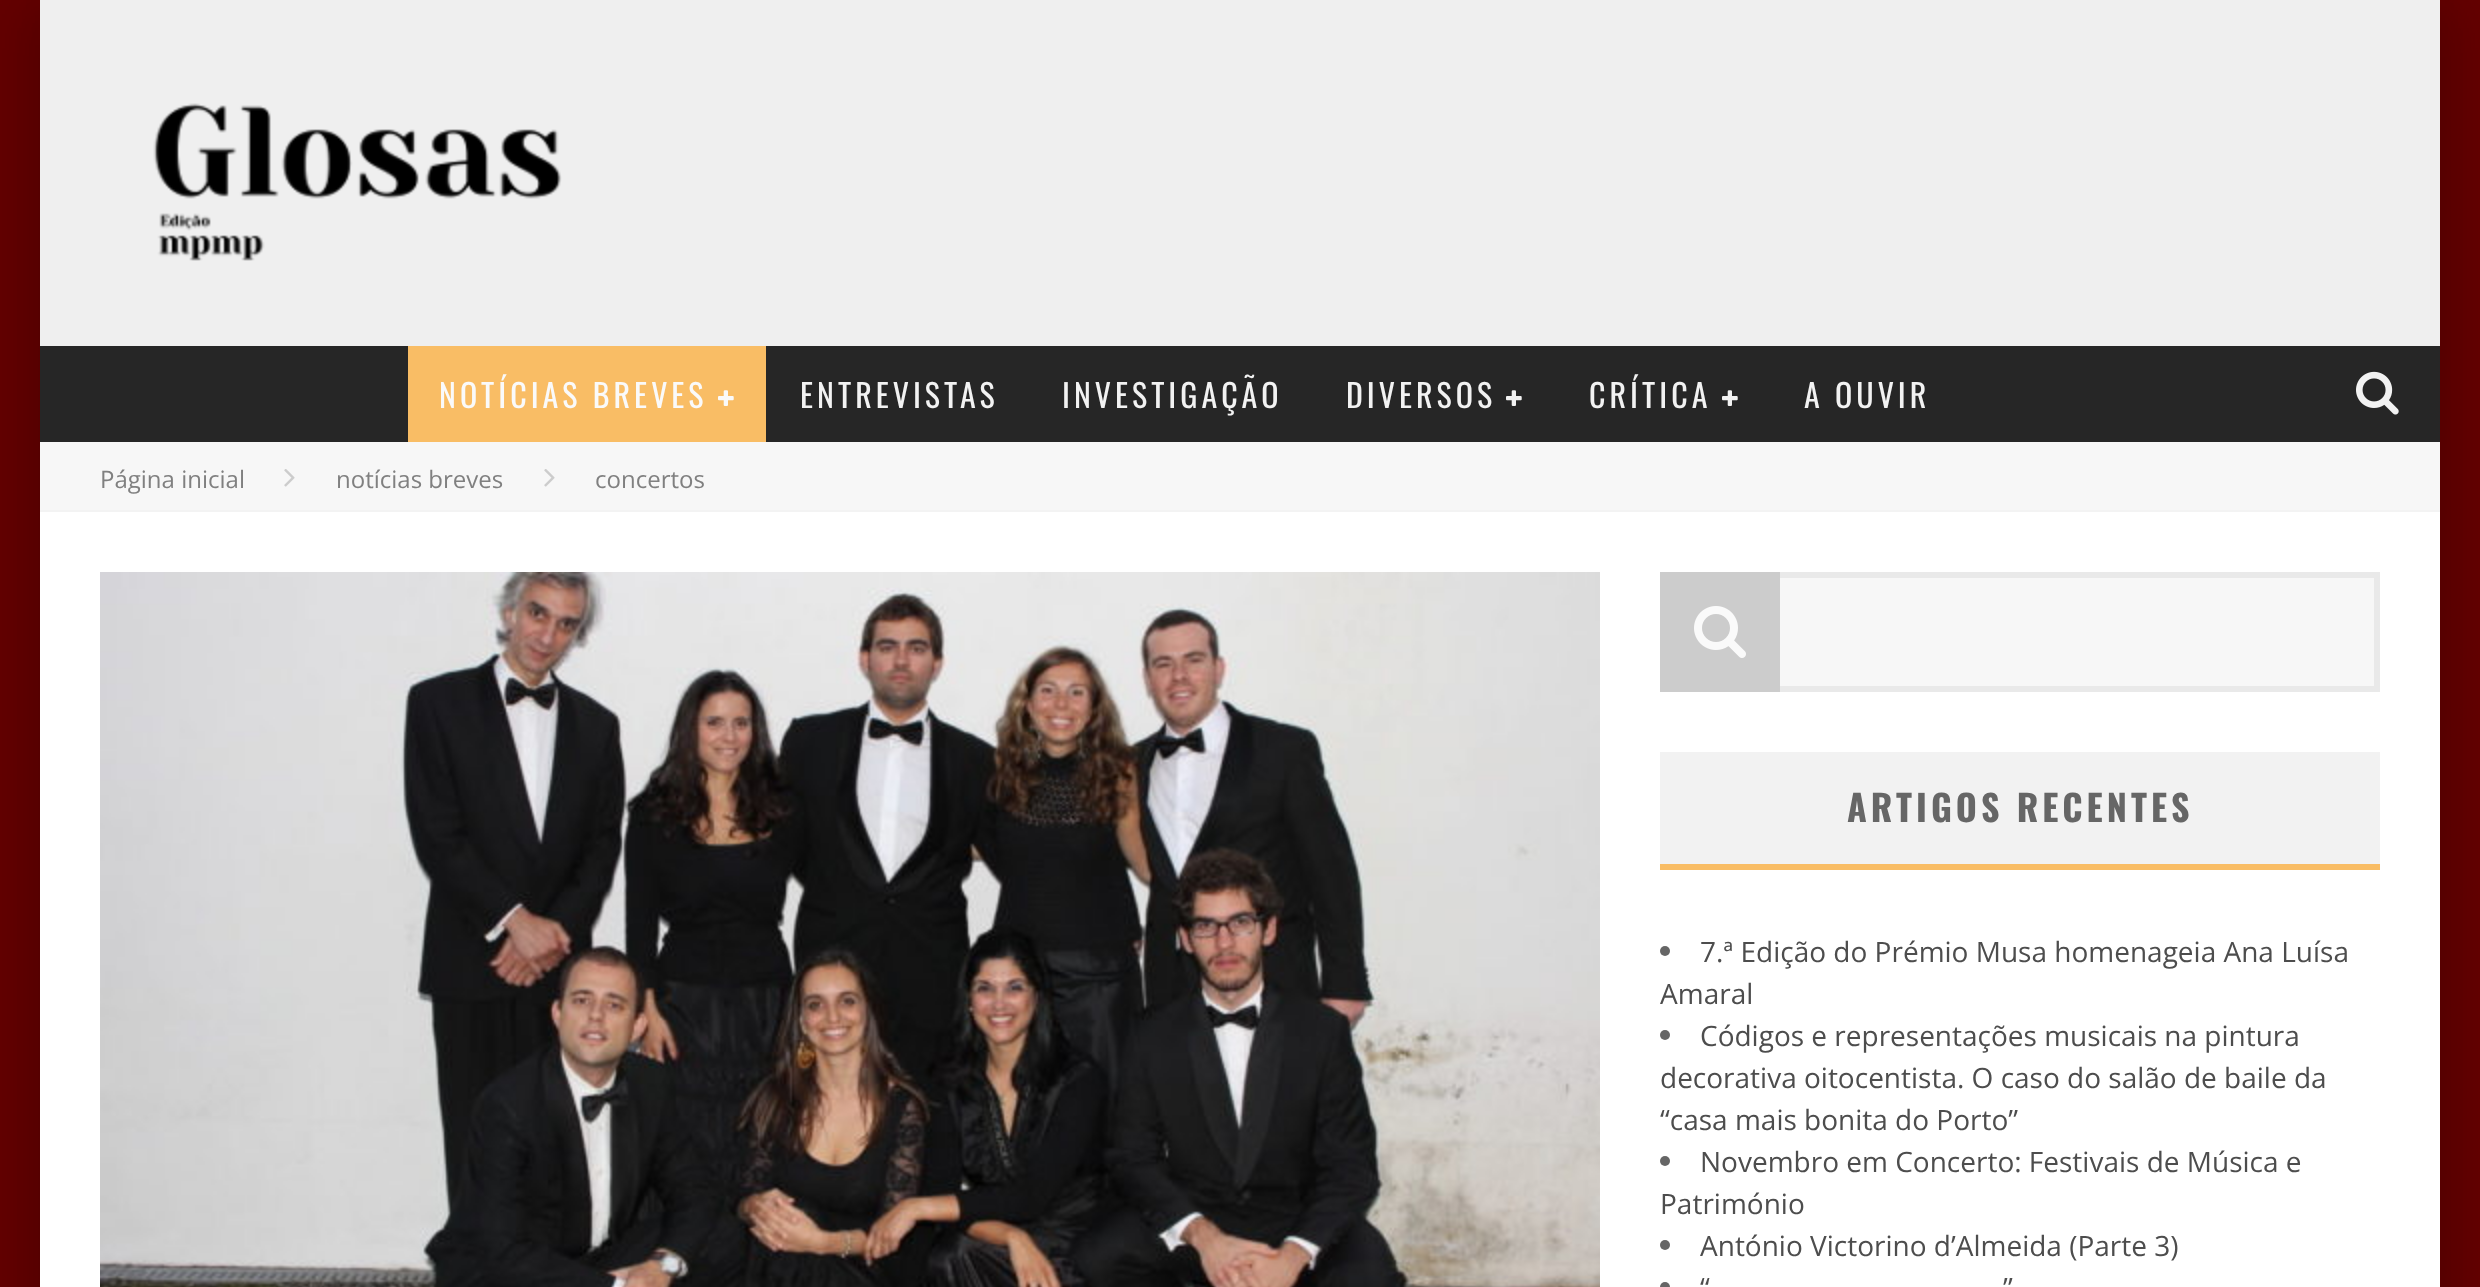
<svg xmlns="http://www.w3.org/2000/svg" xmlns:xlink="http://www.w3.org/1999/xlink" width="2480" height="1287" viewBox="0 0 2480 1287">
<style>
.cls-1{font:32px Oswald;letter-spacing:4px;fill:#fafafa}
.cls-2{font:32px Oswald;letter-spacing:4px;fill:#f2f2f2}
.cls-3{font:24px Open Sans;fill:#808080}
.cls-4{font:bold 36px Oswald;letter-spacing:4px;fill:#666666}
.cls-5{font:28px Open Sans;fill:#4d4d4d}
</style>
<rect width="100%" height="100%" fill="#660202"/>
<rect fill="#000000" fill-opacity="0.15" filter="blur(30px)" x="20" y="0" width="2400" height="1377"/>
<rect fill="#000000" fill-opacity="0.15" filter="blur(30px)" x="60" y="0" width="2400" height="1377"/>
<rect fill="#efefef" x="40" y="0" width="2400" height="346"/>
<image xlink:href="image0.png" x="153" y="103" width="409" height="158"/>
<rect fill="#262626" x="40" y="346" width="2400" height="96"/>
<rect fill="#f9bd65" x="408" y="346" width="358" height="96"/>
<image xlink:href="image1.png" x="718" y="390" width="16" height="16"/>
<image xlink:href="image2.png" x="1506" y="390" width="16" height="16"/>
<image xlink:href="image2.png" x="1722" y="390" width="16" height="16"/>
<image xlink:href="image3.png" x="2356" y="371" width="43" height="44"/>
<rect fill="#ffffff" x="40" y="512" width="2400" height="775"/>
<rect fill="#f7f7f7" x="40" y="442" width="2400" height="68"/>
<rect fill="#f3f3f3" x="40" y="510" width="2400" height="2"/>
<image xlink:href="image4.png" x="284" y="469" width="11" height="18"/>
<image xlink:href="image4.png" x="544" y="469" width="11" height="18"/>
<image xlink:href="image5.png" x="100" y="572" width="1500" height="715"/>
<rect fill="#f7f7f7" x="1780" y="578" width="594" height="108"/>
<rect fill="none" stroke="#e9e9e9" stroke-width="6" x="1663" y="575" width="714" height="114"/>
<rect fill="#cccccc" x="1660" y="572" width="120" height="120"/>
<image xlink:href="image6.png" x="1694" y="606" width="52" height="52"/>
<rect fill="#f2f2f2" x="1660" y="752" width="720" height="112"/>
<rect fill="#f9bd65" x="1660" y="864" width="720" height="6"/>
<circle fill="#666666" cx="1665" cy="951" r="5"/>
<circle fill="#666666" cx="1665" cy="1035" r="5"/>
<circle fill="#666666" cx="1665" cy="1161" r="5"/>
<circle fill="#666666" cx="1665" cy="1245" r="5"/>
<circle fill="#666666" cx="1665" cy="1287" r="5"/>
<text class="cls-1" x="439" y="408">NOTÍCIAS BREVES</text>
<text class="cls-2" x="800" y="408">ENTREVISTAS</text>
<text class="cls-2" x="1062" y="408">INVESTIGAÇÃO</text>
<text class="cls-2" x="1346" y="408">DIVERSOS</text>
<text class="cls-2" x="1589" y="408">CRÍTICA</text>
<text class="cls-2" x="1804" y="408">A OUVIR</text>
<text class="cls-3" x="100" y="488">Página inicial</text>
<text class="cls-3" x="336" y="488">notícias breves</text>
<text class="cls-3" x="595" y="488">concertos</text>
<text class="cls-4" x="1847" y="822">ARTIGOS RECENTES</text>
<text class="cls-5" x="1700" y="962">7.ª Edição do Prémio Musa homenageia Ana Luísa</text>
<text class="cls-5" x="1660" y="1004">Amaral</text>
<text class="cls-5" x="1700" y="1046">Códigos e representações musicais na pintura</text>
<text class="cls-5"><tspan x="1660" y="1088">decorativa oitocentista. O caso do salão de baile da</tspan><tspan x="1660" y="1130">“casa mais bonita do Porto”</tspan></text>
<text class="cls-5" x="1700" y="1172">Novembro em Concerto: Festivais de Música e</text>
<text class="cls-5" x="1660" y="1214">Património</text>
<text class="cls-5"><tspan x="1700" y="1256">António Victorino d’Almeida (Parte 3)</tspan><tspan x="1700" y="1298">“</tspan></text>
<text class="cls-5" x="2003" y="1298">”</text>
</svg>
